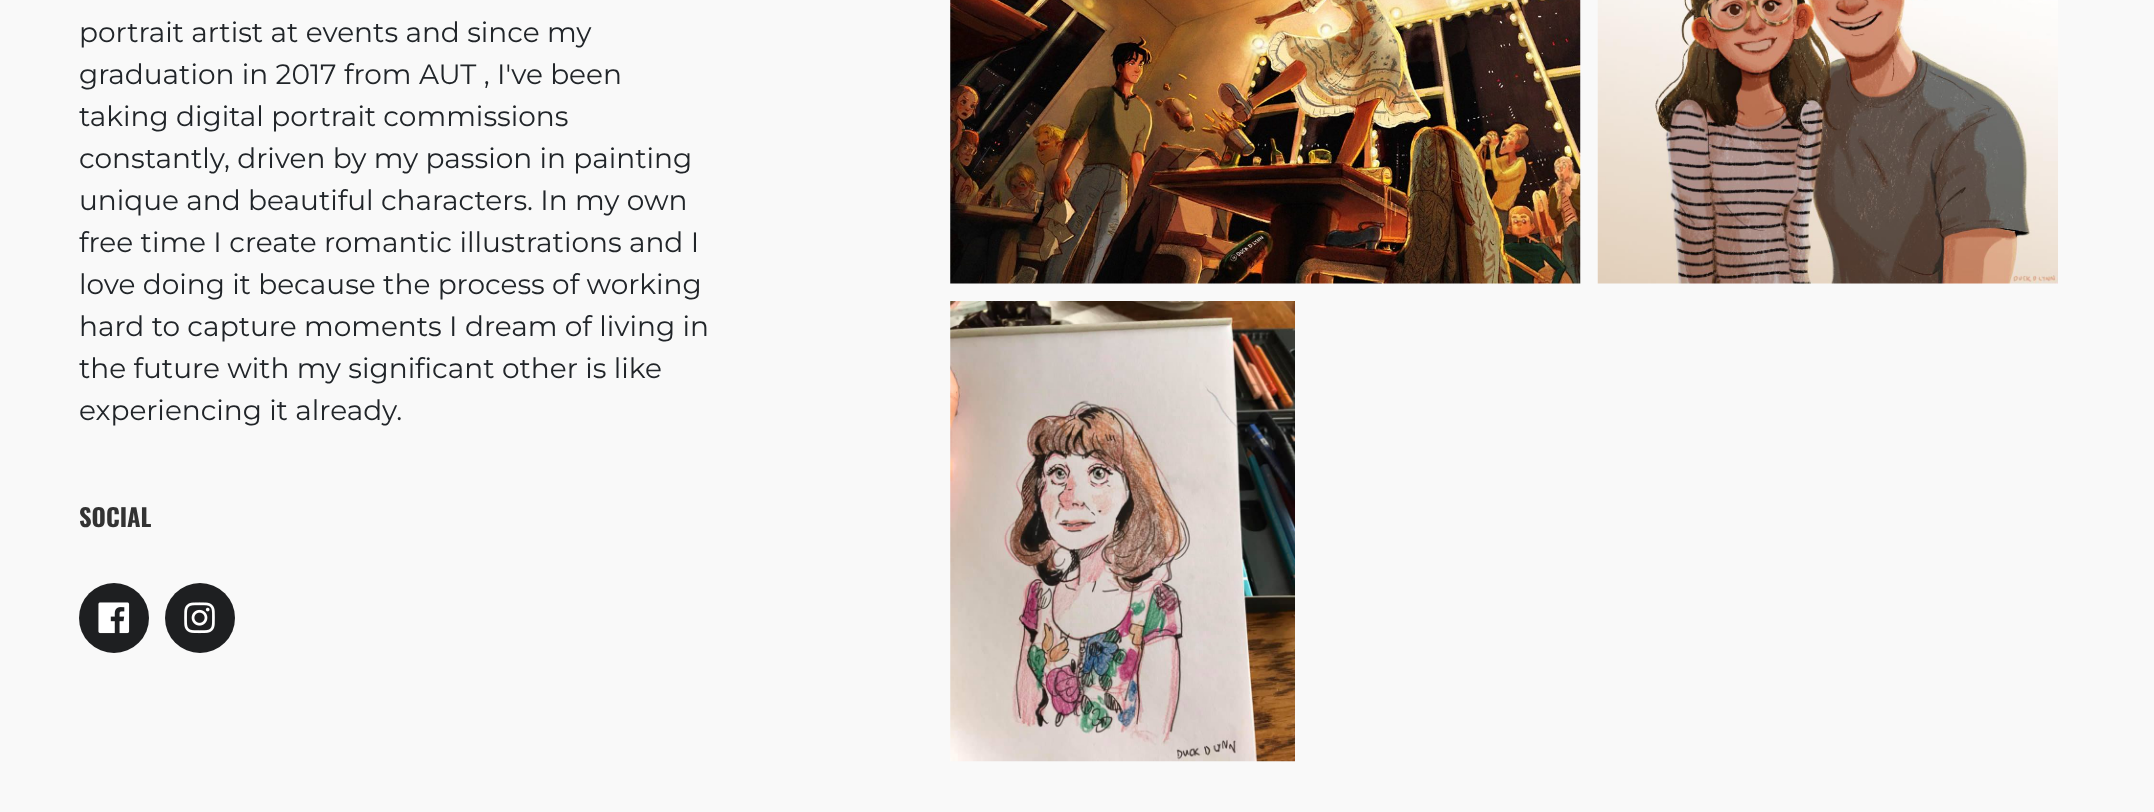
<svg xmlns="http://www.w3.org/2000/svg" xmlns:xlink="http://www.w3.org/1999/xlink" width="2154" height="812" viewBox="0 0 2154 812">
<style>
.cls-1{font:28px Montserrat;fill:#212529}
.cls-2{font:bold 24.5px Oswald;fill:#333333}
</style>
<rect width="100%" height="100%" fill="#f9f9f9"/>
<circle fill="#1e1f21" cx="114" cy="618" r="35"/>
<image xlink:href="image0.png" x="98" y="602" width="32" height="32"/>
<circle fill="#1e1f21" cx="200" cy="618" r="35"/>
<image xlink:href="image1.png" x="184" y="602" width="31" height="32"/>
<image xlink:href="image2.png" x="950" y="0" width="631" height="284"/>
<image xlink:href="image3.png" x="1597" y="0" width="461" height="284"/>
<image xlink:href="image4.png" x="950" y="301" width="345" height="461"/>
<text class="cls-1"><tspan x="79" y="42">portrait artist at events and since my</tspan><tspan x="79" y="84">graduation in 2017 from AUT , I've been</tspan><tspan x="79" y="126">taking digital portrait commissions</tspan><tspan x="79" y="168">constantly, driven by my passion in painting</tspan><tspan x="79" y="210">unique and beautiful characters. In my own</tspan><tspan x="79" y="252">free time I create romantic illustrations and I</tspan><tspan x="79" y="294">love doing it because the process of working</tspan><tspan x="79" y="336">hard to capture moments I dream of living in</tspan><tspan x="79" y="378">the future with my significant other is like</tspan><tspan x="79" y="420">experiencing it already.</tspan></text>
<text class="cls-2" x="79" y="527">SOCIAL</text>
</svg>
